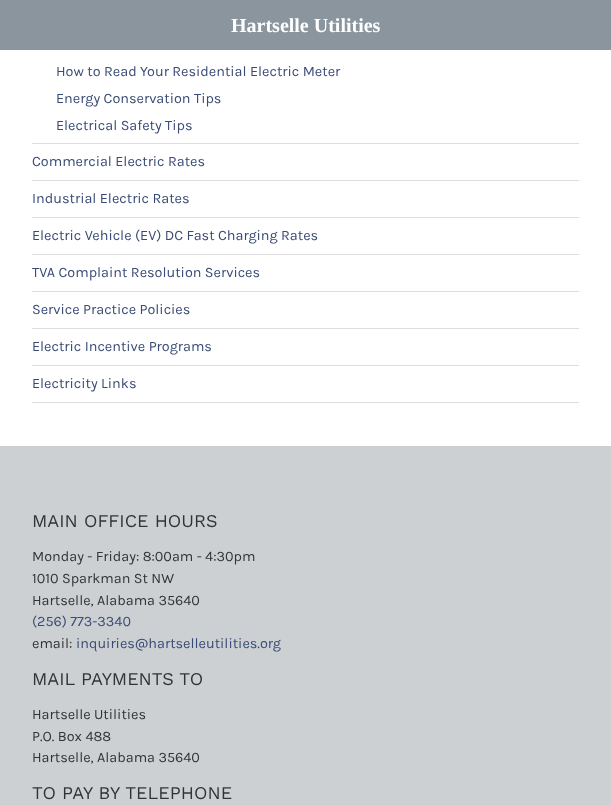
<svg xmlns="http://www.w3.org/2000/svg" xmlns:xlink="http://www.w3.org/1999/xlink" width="611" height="805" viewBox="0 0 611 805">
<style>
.cls-1{font:bold 20px Liberation Serif;fill:#ffffff}
.cls-2{font:14.4px Karla;fill:#394b75}
.cls-3{font:18px Work Sans;fill:#333333}
.cls-4{font:14.4px Karla;fill:#333333}
</style>
<rect width="100%" height="100%" fill="#ffffff"/>
<rect fill="#8b959e" x="0" y="0" width="611" height="50"/>
<rect fill="#dddddd" x="32" y="143" width="547" height="1"/>
<rect fill="#dddddd" x="32" y="180" width="547" height="1"/>
<rect fill="#dddddd" x="32" y="217" width="547" height="1"/>
<rect fill="#dddddd" x="32" y="254" width="547" height="1"/>
<rect fill="#dddddd" x="32" y="291" width="547" height="1"/>
<rect fill="#dddddd" x="32" y="328" width="547" height="1"/>
<rect fill="#dddddd" x="32" y="365" width="547" height="1"/>
<rect fill="#dddddd" x="32" y="402" width="547" height="1"/>
<rect fill="#cdd0d3" x="0" y="446" width="611" height="359"/>
<text class="cls-1" x="231" y="32">Hartselle Utilities</text>
<text class="cls-2"><tspan x="56" y="76">How to Read Your Residential Electric Meter</tspan><tspan x="56" y="103">Energy Conservation Tips</tspan><tspan x="56" y="130">Electrical Safety Tips</tspan></text>
<text class="cls-2" x="32" y="166">Commercial Electric Rates</text>
<text class="cls-2" x="32" y="203">Industrial Electric Rates</text>
<text class="cls-2" x="32" y="240">Electric Vehicle (EV) DC Fast Charging Rates</text>
<text class="cls-2" x="32" y="277">TVA Complaint Resolution Services</text>
<text class="cls-2" x="32" y="314">Service Practice Policies</text>
<text class="cls-2" x="32" y="351">Electric Incentive Programs</text>
<text class="cls-2" x="32" y="388">Electricity Links</text>
<text class="cls-3" x="32" y="527">MAIN OFFICE HOURS</text>
<text class="cls-4"><tspan x="32" y="561">Monday - Friday: 8:00am - 4:30pm</tspan><tspan x="32" y="583">1010 Sparkman St NW</tspan><tspan x="32" y="605">Hartselle, Alabama 35640</tspan></text>
<text class="cls-2" x="32" y="626">(256) 773-3340</text>
<text class="cls-4" x="32" y="648">email:</text>
<text class="cls-2" x="76" y="648">inquiries@hartselleutilities.org</text>
<text class="cls-3" x="32" y="685">MAIL PAYMENTS TO</text>
<text class="cls-4"><tspan x="32" y="719">Hartselle Utilities</tspan><tspan x="32" y="741">P.O. Box 488</tspan><tspan x="32" y="762">Hartselle, Alabama 35640</tspan></text>
<text class="cls-3" x="32" y="799">TO PAY BY TELEPHONE</text>
</svg>
